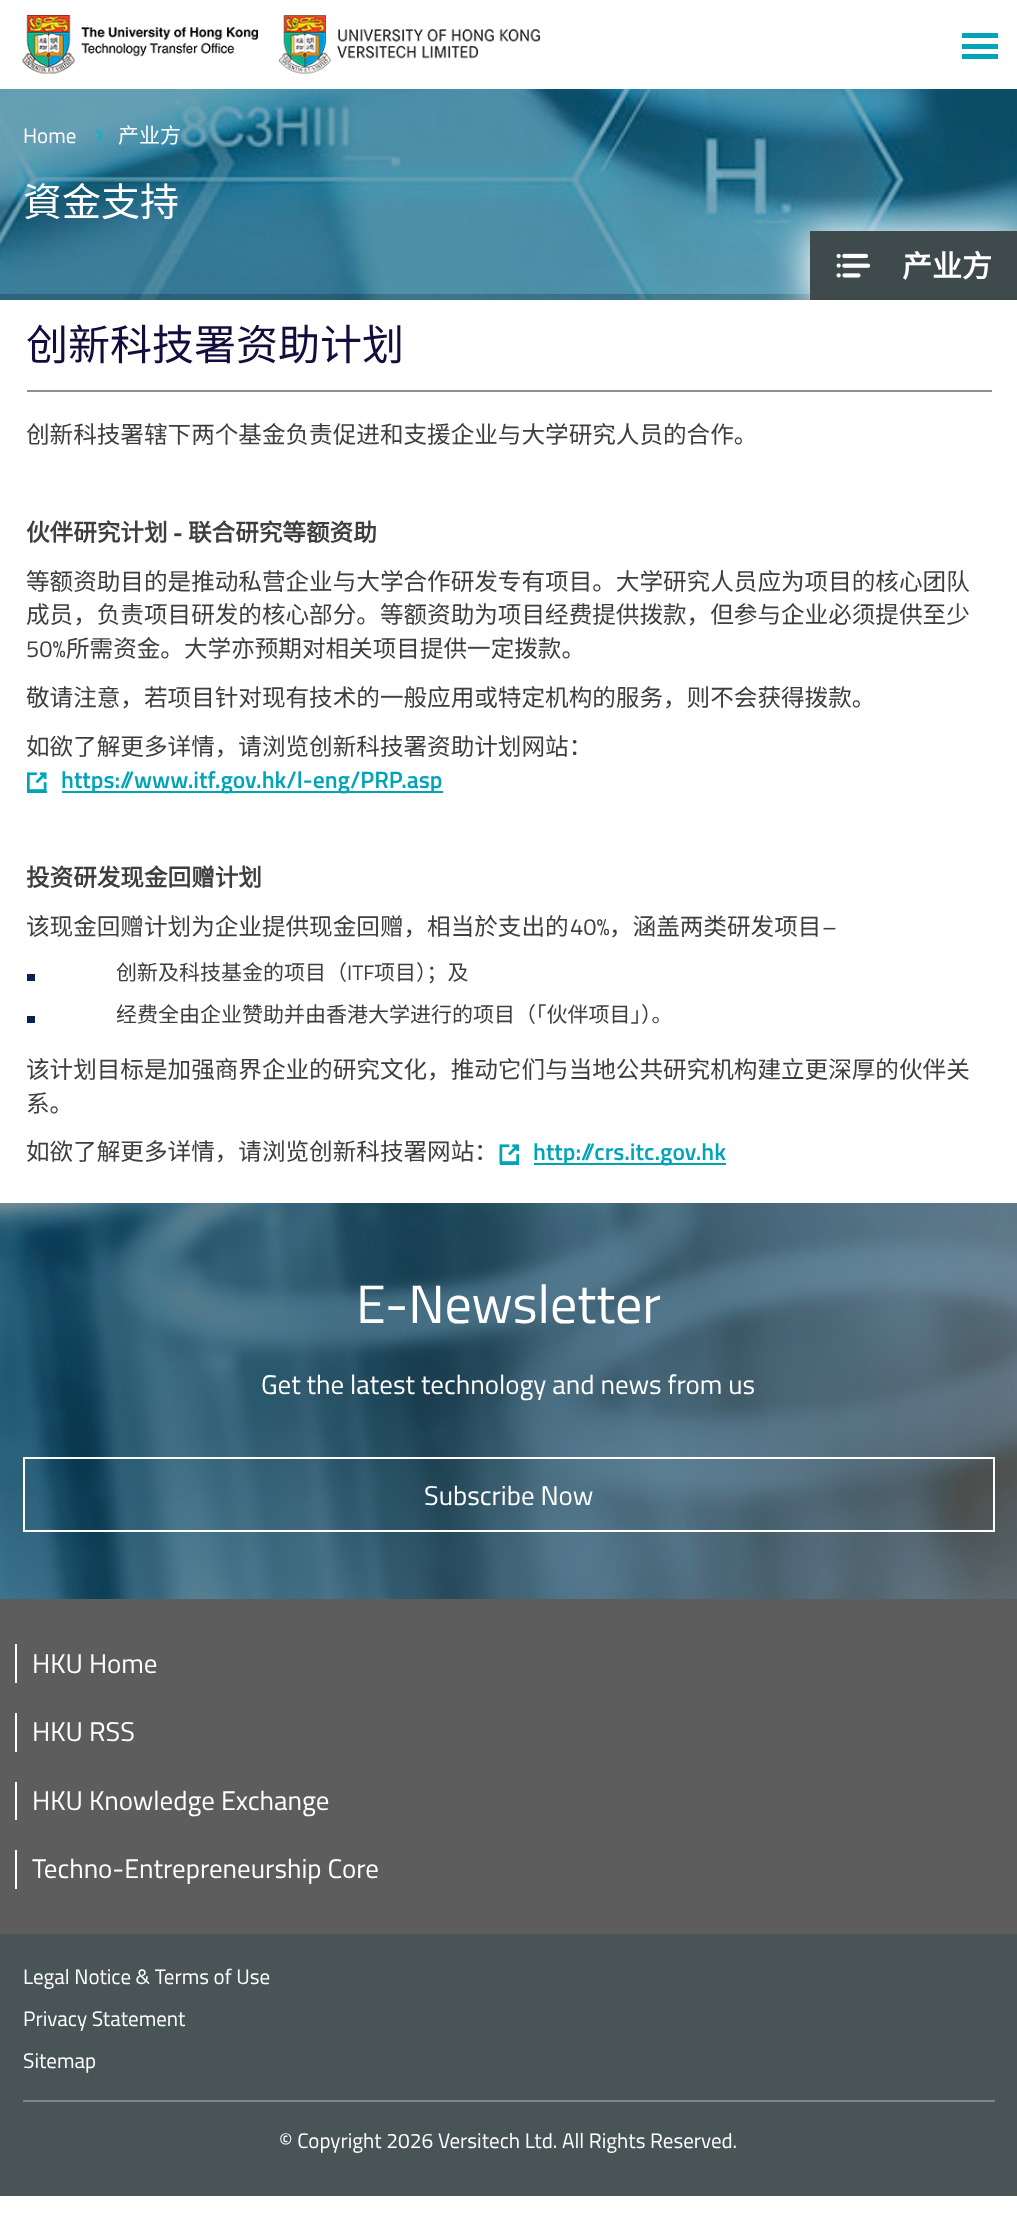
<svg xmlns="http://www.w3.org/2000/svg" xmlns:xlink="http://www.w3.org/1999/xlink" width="1017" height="2213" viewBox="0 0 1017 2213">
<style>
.cls-1{font:21px Titillium Web;fill:#ffffff}
.cls-2{font:21px Noto Sans CJK SC;fill:#ffffff}
.cls-3{font:39px Noto Sans CJK SC;fill:#ffffff}
.cls-4{font:bold 30px Noto Sans CJK SC;fill:#ffffff}
.cls-5{font:42px Noto Sans CJK SC;fill:#150c3e}
.cls-6{font:23.6px Noto Sans CJK SC;fill:#3e3e3e}
.cls-7{font:bold 23.6px Noto Sans CJK SC;fill:#3e3e3e}
.cls-8{font:bold 23.6px Titillium Web;fill:#3e3e3e}
.cls-9{font:23.6px Titillium Web;fill:#3e3e3e}
.cls-10{font:600 23.6px Titillium Web;fill:#00a4b8}
.cls-11{font:21px Noto Sans CJK SC;fill:#3e3e3e}
.cls-12{font:21px Titillium Web;fill:#3e3e3e}
.cls-13{font:54px Titillium Web;fill:#ffffff}
.cls-14{font:27px Titillium Web;fill:#ffffff}
</style>
<rect width="100%" height="100%" fill="#ffffff"/>
<image xlink:href="image0.png" x="22" y="15" width="236" height="59"/>
<image xlink:href="image1.png" x="279" y="15" width="261" height="59"/>
<rect fill="#00a4b8" x="962" y="33" width="36" height="5"/>
<rect fill="#00a4b8" x="962" y="44" width="36" height="5"/>
<rect fill="#00a4b8" x="962" y="54" width="36" height="5"/>
<image xlink:href="image2.png" x="0" y="89" width="1017" height="211"/>
<image xlink:href="image3.png" x="96" y="129" width="8" height="13"/>
<rect fill="#000000" fill-opacity="0.2" x="0" y="294" width="810" height="6"/>
<rect fill="#ffffff" filter="blur(19px)" x="806" y="231" width="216" height="78"/>
<rect fill="#3f4a4c" x="810" y="231" width="207" height="69"/>
<image xlink:href="image4.png" x="836" y="253" width="35" height="25"/>
<rect fill="#8f8f8f" x="27" y="390" width="965" height="2"/>
<rect fill="#00a4b8" x="27" y="791" width="20" height="2"/>
<image xlink:href="image5.png" x="27" y="772" width="20" height="19"/>
<rect fill="#00a4b8" x="62" y="791" width="381" height="2"/>
<rect fill="#0a1f53" x="27" y="974" width="8" height="7"/>
<rect fill="#0a1f53" x="27" y="1016" width="8" height="7"/>
<rect fill="#00a4b8" x="500" y="1163" width="19" height="2"/>
<image xlink:href="image6.png" x="499" y="1144" width="20" height="20"/>
<rect fill="#00a4b8" x="534" y="1163" width="192" height="2"/>
<image xlink:href="image7.png" x="0" y="1203" width="1017" height="396"/>
<rect fill="none" stroke="#ffffff" stroke-width="2" x="24" y="1458" width="970" height="73"/>
<rect fill="#5d5d5d" x="0" y="1599" width="1017" height="335"/>
<rect fill="#ffffff" x="15" y="1644" width="2" height="39"/>
<rect fill="#ffffff" x="15" y="1713" width="2" height="39"/>
<rect fill="#ffffff" x="15" y="1782" width="2" height="38"/>
<rect fill="#ffffff" x="15" y="1850" width="2" height="39"/>
<rect fill="#485456" x="0" y="1934" width="1017" height="262"/>
<rect fill="#7f8789" x="23" y="2100" width="972" height="2"/>
<text class="cls-1" x="23" y="143">Home</text>
<text class="cls-2" x="118" y="143">产业方</text>
<text class="cls-3" x="23" y="216">資金支持</text>
<text class="cls-4" x="902" y="277">产业方</text>
<text class="cls-5" x="26" y="360">创新科技署资助计划</text>
<text class="cls-6" x="26" y="443">创新科技署辖下两个基金负责促进和支援企业与大学研究人员的合作。</text>
<text class="cls-7" x="26" y="541">伙伴研究计划</text>
<text class="cls-8" x="173" y="541">-</text>
<text class="cls-7" x="188" y="541">联合研究等额资助</text>
<text class="cls-6"><tspan x="26" y="590">等额资助目的是推动私营企业与大学合作研发专有项目。大学研究人员应为项目的核心团队</tspan><tspan x="26" y="623">成员，负责项目研发的核心部分。等额资助为项目经费提供拨款，但参与企业必须提供至少</tspan></text>
<text class="cls-9" x="26" y="657">50%</text>
<text class="cls-6" x="66" y="657">所需资金。大学亦预期对相关项目提供一定拨款。</text>
<text class="cls-6" x="26" y="706">敬请注意，若项目针对现有技术的一般应用或特定机构的服务，则不会获得拨款。</text>
<text class="cls-6" x="26" y="755">如欲了解更多详情，请浏览创新科技署资助计划网站：</text>
<text class="cls-10" x="61" y="788">https://www.itf.gov.hk/l-eng/PRP.asp</text>
<text class="cls-7" x="26" y="886">投资研发现金回赠计划</text>
<text class="cls-6" x="26" y="935">该现金回赠计划为企业提供现金回赠，相当於支出的</text>
<text class="cls-9" x="570" y="935">40%</text>
<text class="cls-6" x="609" y="935">，涵盖两类研发项目</text>
<text class="cls-9" x="822" y="935">–</text>
<text class="cls-11" x="116" y="980">创新及科技基金的项目（</text>
<text class="cls-12" x="347" y="980">ITF</text>
<text class="cls-11" x="374" y="980">项目）；及</text>
<text class="cls-11" x="116" y="1022">经费全由企业赞助并由香港大学进行的项目（「伙伴项目」）。</text>
<text class="cls-6"><tspan x="26" y="1078">该计划目标是加强商界企业的研究文化，推动它们与当地公共研究机构建立更深厚的伙伴关</tspan><tspan x="26" y="1112">系。</tspan></text>
<text class="cls-6" x="26" y="1160">如欲了解更多详情，请浏览创新科技署网站：</text>
<text class="cls-10" x="533" y="1160">http://crs.itc.gov.hk</text>
<text class="cls-13" x="356" y="1323">E-Newsletter</text>
<text class="cls-14" x="261" y="1394">Get the latest technology and news from us</text>
<text class="cls-14" x="424" y="1505">Subscribe Now</text>
<text class="cls-14" x="32" y="1673">HKU Home</text>
<text class="cls-14" x="32" y="1741">HKU RSS</text>
<text class="cls-14" x="32" y="1810">HKU Knowledge Exchange</text>
<text class="cls-14" x="32" y="1878">Techno-Entrepreneurship Core</text>
<text class="cls-1" x="23" y="1984">Legal Notice &amp; Terms of Use</text>
<text class="cls-1" x="23" y="2026">Privacy Statement</text>
<text class="cls-1" x="23" y="2068">Sitemap</text>
<text class="cls-1" x="279" y="2148">© Copyright 2026 Versitech Ltd. All Rights Reserved.</text>
</svg>
